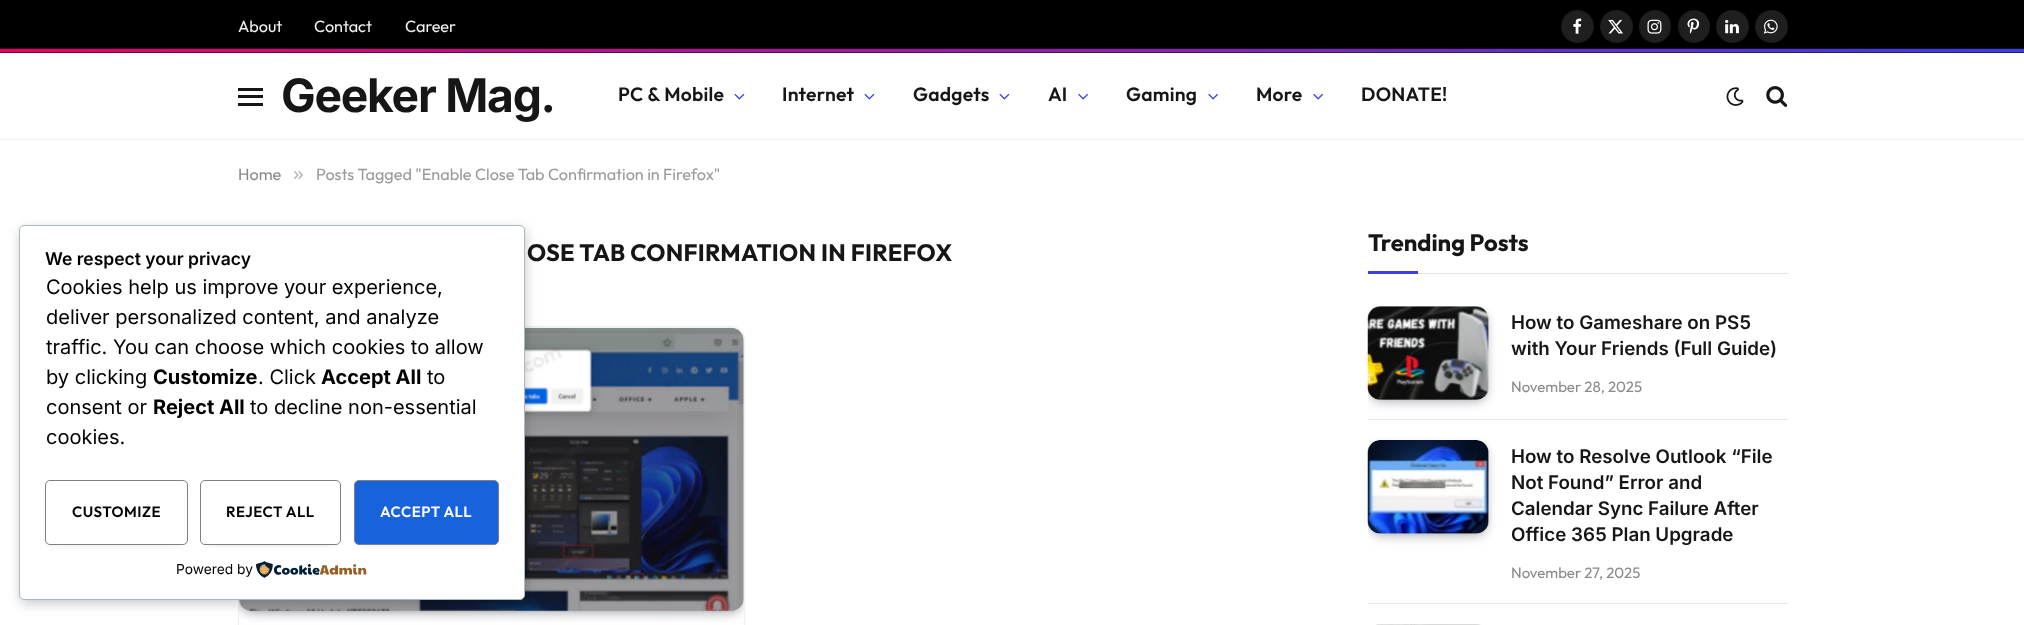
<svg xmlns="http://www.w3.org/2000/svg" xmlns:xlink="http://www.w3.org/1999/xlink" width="2024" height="625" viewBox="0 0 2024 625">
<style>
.cls-1{font:16.25px Outfit;fill:#f0f0f0}
.cls-2{font:bold 46.25px Inter;letter-spacing:-1.25px;fill:#161616}
.cls-3{font:600 19.25px Outfit;letter-spacing:0.25px;fill:#161616}
.cls-4{font:16.25px Outfit;fill:#8a8a8a}
.cls-5{font:19px Liberation Sans;fill:#adadad}
.cls-6{font:16.25px Outfit;fill:#999999}
.cls-7{font:bold 23.75px Outfit;letter-spacing:0.25px;fill:#161616}
.cls-8{font:bold 23.75px Outfit;fill:#161616}
.cls-9{font:600 18.75px Inter;fill:#161616}
.cls-10{font:15px Outfit;fill:#8a8a8a}
.cls-11{font:600 17.5px Inter;fill:#000000}
.cls-12{font:20px Inter;fill:#000000}
.cls-13{font:bold 20px Inter;fill:#000000}
.cls-14{font:600 15px Outfit;letter-spacing:0.5px;fill:#000000}
.cls-15{font:600 15px Outfit;letter-spacing:0.5px;fill:#ffffff}
.cls-16{font:13.75px Inter;fill:#000000}
</style>
<defs>
<clipPath id="clip1"><rect x="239" y="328" width="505" height="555" rx="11"/></clipPath>
<clipPath id="clip2"><rect x="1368" y="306" width="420" height="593"/></clipPath>
<clipPath id="clip3"><rect x="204" y="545" width="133" height="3"/></clipPath>
</defs>
<rect width="100%" height="100%" fill="#ffffff"/>
<rect fill="#000000" x="0" y="0" width="2024" height="53"/>
<image xlink:href="image0.png" x="0" y="48" width="2024" height="5"/>
<circle fill="#1f1f1f" cx="1577.5" cy="26.5" r="16.5"/>
<circle fill="none" stroke="#000000" stroke-opacity="0.09" cx="1577.5" cy="26.5" r="16"/>
<image xlink:href="image1.png" x="1573" y="18" width="9" height="16"/>
<circle fill="#1f1f1f" cx="1616.5" cy="26.5" r="16.5"/>
<circle fill="none" stroke="#000000" stroke-opacity="0.09" cx="1616.5" cy="26.5" r="16"/>
<image xlink:href="image2.png" x="1608" y="19" width="15" height="15"/>
<rect fill="#1f1f1f" x="1639" y="10" width="32" height="33" rx="16"/>
<rect fill="none" stroke="#000000" stroke-opacity="0.09" x="1639.5" y="10.5" width="31" height="32" rx="15.5"/>
<image xlink:href="image3.png" x="1647" y="19" width="15" height="15"/>
<rect fill="#1f1f1f" x="1678" y="10" width="32" height="33" rx="16"/>
<rect fill="none" stroke="#000000" stroke-opacity="0.09" x="1678.5" y="10.5" width="31" height="32" rx="15.5"/>
<image xlink:href="image4.png" x="1687" y="18" width="13" height="16"/>
<circle fill="#1f1f1f" cx="1732.5" cy="26.5" r="16.5"/>
<circle fill="none" stroke="#000000" stroke-opacity="0.09" cx="1732.5" cy="26.5" r="16"/>
<image xlink:href="image5.png" x="1725" y="19" width="14" height="15"/>
<circle fill="#1f1f1f" cx="1771.5" cy="26.5" r="16.5"/>
<circle fill="none" stroke="#000000" stroke-opacity="0.09" cx="1771.5" cy="26.5" r="16"/>
<image xlink:href="image6.png" x="1763" y="19" width="15" height="15"/>
<rect fill="#efefef" x="0" y="139" width="2024" height="1"/>
<rect fill="#161616" x="238" y="103" width="25" height="3"/>
<rect fill="#161616" x="238" y="88" width="25" height="3"/>
<rect fill="#161616" x="238" y="95" width="25" height="3"/>
<image xlink:href="image7.png" x="734" y="93" width="11" height="7"/>
<image xlink:href="image7.png" x="864" y="93" width="11" height="7"/>
<image xlink:href="image7.png" x="999" y="93" width="11" height="7"/>
<image xlink:href="image8.png" x="1078" y="93" width="10" height="7"/>
<image xlink:href="image8.png" x="1208" y="93" width="10" height="7"/>
<image xlink:href="image8.png" x="1313" y="93" width="10" height="7"/>
<image xlink:href="image9.png" x="1726" y="87" width="18" height="19"/>
<image xlink:href="image10.png" x="1766" y="86" width="22" height="21"/>
<rect fill="none" stroke="#efefef" x="238.5" y="326.5" width="506" height="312" rx="12.5"/>
<g clip-path="url(#clip1)">
<rect fill="#070a19" fill-opacity="0.2" filter="blur(7.5px)" x="246" y="343" width="490" height="268" rx="5"/>
<rect fill="#070a19" fill-opacity="0.2" filter="blur(4px)" x="240" y="331" width="503" height="282" rx="11"/>
</g>
<image xlink:href="image11.png" x="239" y="327" width="505" height="285"/>
<rect fill="#e2e2e2" x="1418" y="273" width="370" height="1"/>
<rect fill="#3c3fde" x="1368" y="271" width="50" height="3"/>
<g clip-path="url(#clip2)">
<rect fill="#070a19" fill-opacity="0.2" filter="blur(7.5px)" x="1375" y="321" width="106" height="79" rx="5"/>
<rect fill="#070a19" fill-opacity="0.2" filter="blur(4px)" x="1369" y="310" width="119" height="91" rx="11"/>
</g>
<image xlink:href="image12.png" x="1367" y="306" width="122" height="94"/>
<rect fill="#e8e8e8" x="1368" y="419" width="420" height="1"/>
<g clip-path="url(#clip2)">
<rect fill="#070a19" fill-opacity="0.2" filter="blur(7.5px)" x="1375" y="455" width="106" height="79" rx="5"/>
<rect fill="#070a19" fill-opacity="0.2" filter="blur(4px)" x="1369" y="444" width="119" height="91" rx="11"/>
</g>
<image xlink:href="image13.png" x="1367" y="440" width="122" height="94"/>
<rect fill="#e8e8e8" x="1368" y="603" width="420" height="1"/>
<image xlink:href="image14.png" x="1376" y="624" width="105" height="1"/>
<rect fill="#000000" fill-opacity="0.2" filter="blur(6px)" x="20" y="229" width="506" height="375" rx="5"/>
<rect fill="#ffffff" stroke="#abb8c3" x="19.5" y="225.5" width="505" height="374" rx="4.5"/>
<rect fill="#000000" fill-opacity="0.16" filter="blur(4.5px)" x="50" y="488" width="133" height="55"/>
<rect fill="#ffffff" stroke="#808080" x="45.5" y="480.5" width="142" height="64" rx="4.5"/>
<g clip-path="url(#clip3)">
<rect fill="#000000" fill-opacity="0.16" filter="blur(4.5px)" x="205" y="488" width="131" height="55"/>
</g>
<rect fill="none" stroke="#808080" x="200.5" y="480.5" width="140" height="64" rx="4.5"/>
<rect fill="#000000" fill-opacity="0.16" filter="blur(4.5px)" x="359" y="488" width="135" height="55"/>
<rect fill="#1863dc" stroke="#808080" x="354.5" y="480.5" width="144" height="64" rx="4.5"/>
<image xlink:href="image15.png" x="256" y="561" width="111" height="17"/>
<text class="cls-1" x="238" y="32">About</text>
<text class="cls-1" x="314" y="32">Contact</text>
<text class="cls-1" x="405" y="32">Career</text>
<text class="cls-2" x="281" y="112">Geeker Mag.</text>
<text class="cls-3" x="618" y="101">PC &amp; Mobile</text>
<text class="cls-3" x="782" y="101">Internet</text>
<text class="cls-3" x="913" y="101">Gadgets</text>
<text class="cls-3" x="1048" y="101">AI</text>
<text class="cls-3" x="1126" y="101">Gaming</text>
<text class="cls-3" x="1256" y="101">More</text>
<text class="cls-3" x="1361" y="101">DONATE!</text>
<text class="cls-4" x="238" y="180">Home</text>
<text class="cls-5" x="293" y="180">»</text>
<text class="cls-6" x="316" y="180">Posts Tagged "Enable Close Tab Confirmation in Firefox"</text>
<text class="cls-7" x="527" y="261">OSE TAB CONFIRMATION IN FIREFOX</text>
<text class="cls-8" x="1368" y="251">Trending Posts</text>
<text class="cls-9"><tspan x="1511" y="329">How to Gameshare on PS5</tspan><tspan x="1511" y="355">with Your Friends (Full Guide)</tspan></text>
<text class="cls-10" x="1511" y="392">November 28, 2025</text>
<text class="cls-9"><tspan x="1511" y="463">How to Resolve Outlook “File</tspan><tspan x="1511" y="489">Not Found” Error and</tspan><tspan x="1511" y="515">Calendar Sync Failure After</tspan><tspan x="1511" y="541">Office 365 Plan Upgrade</tspan></text>
<text class="cls-10" x="1511" y="578">November 27, 2025</text>
<text class="cls-11" x="45" y="265">We respect your privacy</text>
<text class="cls-12"><tspan x="46" y="294">Cookies help us improve your experience,</tspan><tspan x="46" y="324">deliver personalized content, and analyze</tspan><tspan x="46" y="354">traffic. You can choose which cookies to allow</tspan><tspan x="46" y="384">by clicking</tspan></text>
<text class="cls-13" x="153" y="384">Customize</text>
<text class="cls-12" x="258" y="384">. Click</text>
<text class="cls-13" x="321" y="384">Accept All</text>
<text class="cls-12" x="427" y="384">to</text>
<text class="cls-12" x="46" y="414">consent or</text>
<text class="cls-13" x="153" y="414">Reject All</text>
<text class="cls-12" x="250" y="414">to decline non-essential</text>
<text class="cls-12" x="46" y="444">cookies.</text>
<text class="cls-14" x="72" y="517">CUSTOMIZE</text>
<text class="cls-14" x="226" y="517">REJECT ALL</text>
<text class="cls-15" x="380" y="517">ACCEPT ALL</text>
<text class="cls-16" x="176" y="574">Powered by</text>
</svg>
